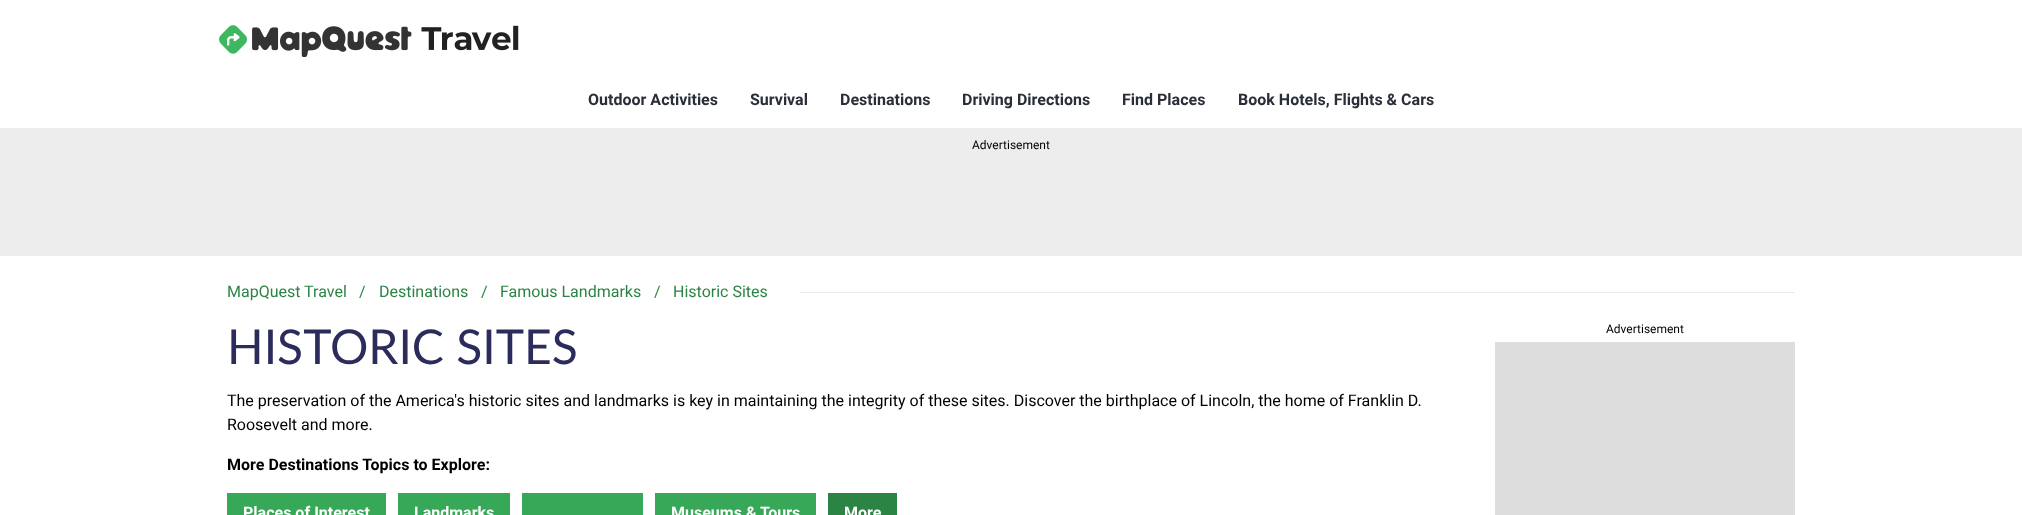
<svg xmlns="http://www.w3.org/2000/svg" xmlns:xlink="http://www.w3.org/1999/xlink" width="2022" height="515" viewBox="0 0 2022 515">
<style>
.cls-1{font:bold 16px Roboto;fill:#2a2e38}
.cls-2{font:12px Roboto;fill:#000000}
.cls-3{font:16px Roboto;fill:#2b8444}
.cls-4{font:48px Lato;fill:#2b2b5c}
.cls-5{font:16px Roboto;fill:#000000}
.cls-6{font:bold 16px Roboto;fill:#000000}
.cls-7{font:bold 16px Roboto;fill:#ffffff}
</style>
<rect width="100%" height="100%" fill="#ffffff"/>
<image xlink:href="image0.png" x="219" y="25" width="300" height="32"/>
<rect fill="#ededed" x="0" y="128" width="2022" height="128"/>
<rect fill="#eaeaea" x="800" y="292" width="995" height="1"/>
<rect fill="#37a857" x="227" y="493" width="159" height="22"/>
<rect fill="#37a857" x="398" y="493" width="112" height="22"/>
<rect fill="#37a857" x="522" y="493" width="121" height="22"/>
<rect fill="#37a857" x="655" y="493" width="161" height="22"/>
<rect fill="#2b8444" x="828" y="493" width="69" height="22"/>
<rect fill="#dddddd" x="1495" y="342" width="300" height="173"/>
<text class="cls-1" x="588" y="105">Outdoor Activities</text>
<text class="cls-1" x="750" y="105">Survival</text>
<text class="cls-1" x="840" y="105">Destinations</text>
<text class="cls-1" x="962" y="105">Driving Directions</text>
<text class="cls-1" x="1122" y="105">Find Places</text>
<text class="cls-1" x="1238" y="105">Book Hotels, Flights &amp; Cars</text>
<text class="cls-2" x="972" y="149">Advertisement</text>
<text class="cls-3" x="227" y="297">MapQuest Travel</text>
<text class="cls-3" x="359" y="297">/</text>
<text class="cls-3" x="379" y="297">Destinations</text>
<text class="cls-3" x="481" y="297">/</text>
<text class="cls-3" x="500" y="297">Famous Landmarks</text>
<text class="cls-3" x="654" y="297">/</text>
<text class="cls-3" x="673" y="297">Historic Sites</text>
<text class="cls-4" x="227" y="364">HISTORIC SITES</text>
<text class="cls-5"><tspan x="227" y="406">The preservation of the America's historic sites and landmarks is key in maintaining the integrity of these sites. Discover the birthplace of Lincoln, the home of Franklin D.</tspan><tspan x="227" y="430">Roosevelt and more.</tspan></text>
<text class="cls-6" x="227" y="470">More Destinations Topics to Explore:</text>
<text class="cls-7" x="243" y="518">Places of Interest</text>
<text class="cls-7" x="414" y="518">Landmarks</text>
<text class="cls-7" x="671" y="518">Museums &amp; Tours</text>
<text class="cls-7" x="844" y="518">More</text>
<text class="cls-2" x="1606" y="333">Advertisement</text>
</svg>
